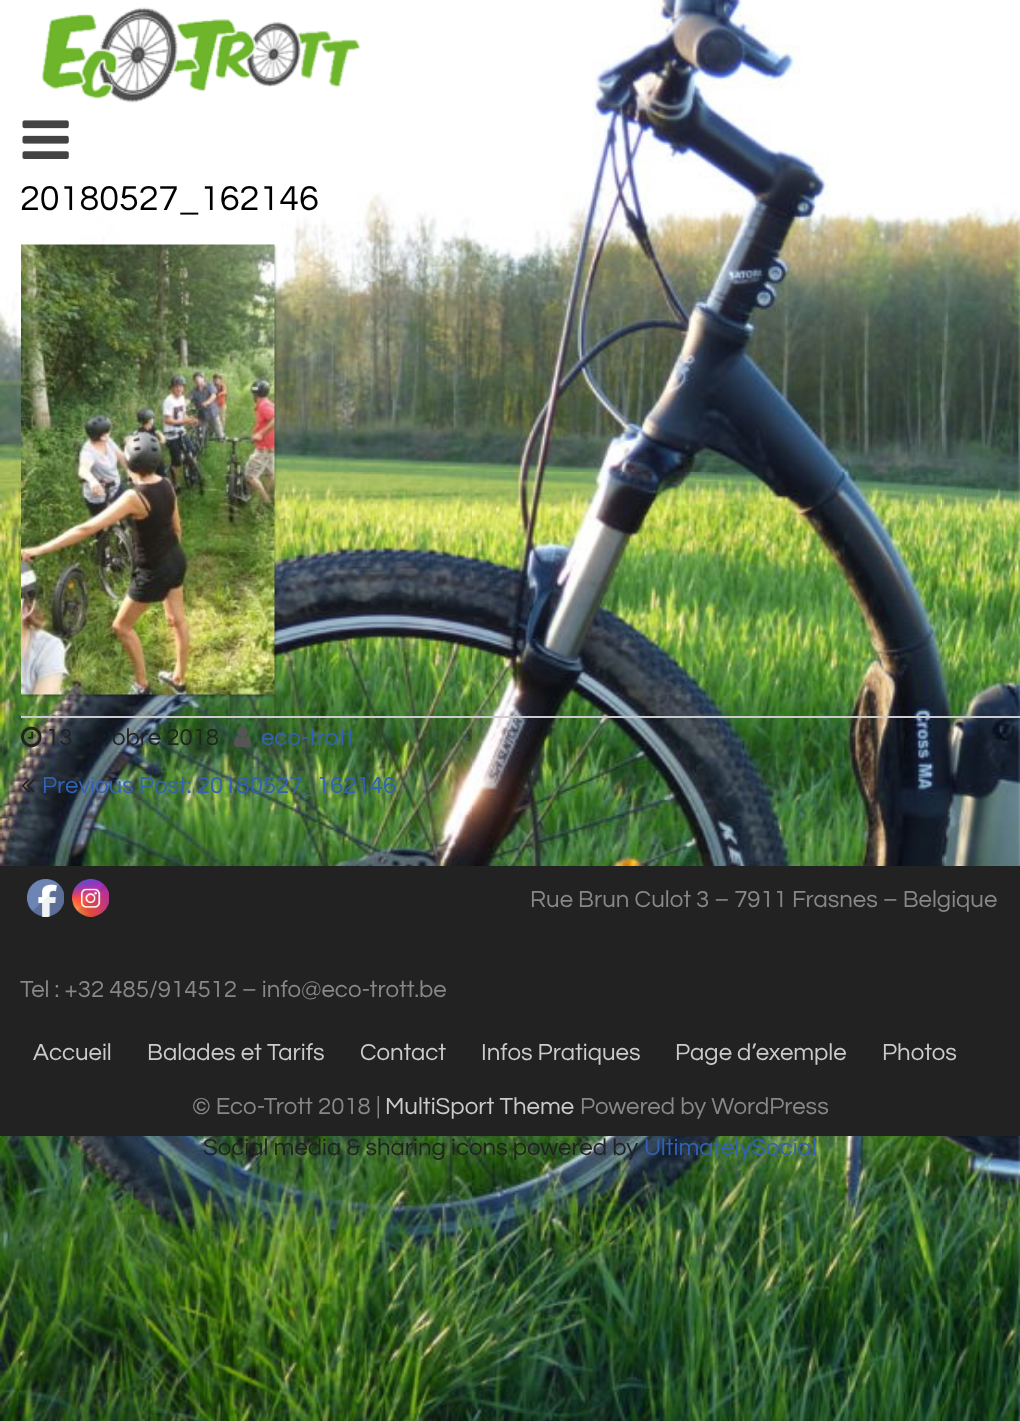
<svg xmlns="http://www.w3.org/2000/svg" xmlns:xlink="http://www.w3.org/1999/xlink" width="1020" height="1421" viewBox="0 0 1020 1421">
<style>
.cls-1{font:36px Questrial;fill:#000000}
.cls-2{font:24px Questrial;fill:#222222}
.cls-3{font:24px Questrial;fill:#3063b5}
.cls-4{font:24px Questrial;fill:#888888}
.cls-5{font:24px Questrial;fill:#cccccc}
</style>
<defs>
<clipPath id="clip1"><rect x="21" y="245" width="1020" height="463"/></clipPath>
</defs>
<rect width="100%" height="100%" fill="#ffffff"/>
<image xlink:href="image0.png" x="0" y="0" width="1020" height="1421"/>
<image xlink:href="image1.png" x="41" y="7" width="320" height="96"/>
<image xlink:href="image2.png" x="22" y="120" width="47" height="39"/>
<g clip-path="url(#clip1)">
<rect fill="#000000" fill-opacity="0.3" filter="blur(1.5px)" x="21" y="246" width="254" height="450"/>
</g>
<image xlink:href="image3.png" x="21" y="244" width="254" height="451"/>
<rect fill="#cccccc" x="21" y="716" width="999" height="2"/>
<image xlink:href="image4.png" x="21" y="726" width="21" height="22"/>
<image xlink:href="image5.png" x="234" y="726" width="18" height="22"/>
<image xlink:href="image6.png" x="21" y="779" width="14" height="14"/>
<rect fill="#222222" x="0" y="866" width="1020" height="270"/>
<image xlink:href="image7.png" x="27" y="879" width="37" height="38"/>
<image xlink:href="image8.png" x="72" y="879" width="37" height="38"/>
<text class="cls-1" x="20" y="210">20180527_162146</text>
<text class="cls-2" x="46" y="745">13</text>
<text class="cls-2" x="112" y="745">obre 2018</text>
<text class="cls-3" x="261" y="745">eco-trott</text>
<text class="cls-3" x="42" y="793">Previous Post: 20180527_162146</text>
<text class="cls-4" x="530" y="907">Rue Brun Culot 3 – 7911 Frasnes – Belgique</text>
<text class="cls-4" x="20" y="997">Tel : +32 485/914512 – info@eco-trott.be</text>
<text class="cls-5" x="33" y="1060">Accueil</text>
<text class="cls-5" x="147" y="1060">Balades et Tarifs</text>
<text class="cls-5" x="360" y="1060">Contact</text>
<text class="cls-5" x="481" y="1060">Infos Pratiques</text>
<text class="cls-5" x="675" y="1060">Page d’exemple</text>
<text class="cls-5" x="882" y="1060">Photos</text>
<text class="cls-4" x="192" y="1114">© Eco-Trott 2018 |</text>
<text class="cls-5" x="385" y="1114">MultiSport Theme</text>
<text class="cls-4" x="580" y="1114">Powered by WordPress</text>
<text class="cls-2" x="203" y="1155">Social media &amp; sharing icons powered by</text>
<text class="cls-3" x="644" y="1155">UltimatelySocial</text>
</svg>
